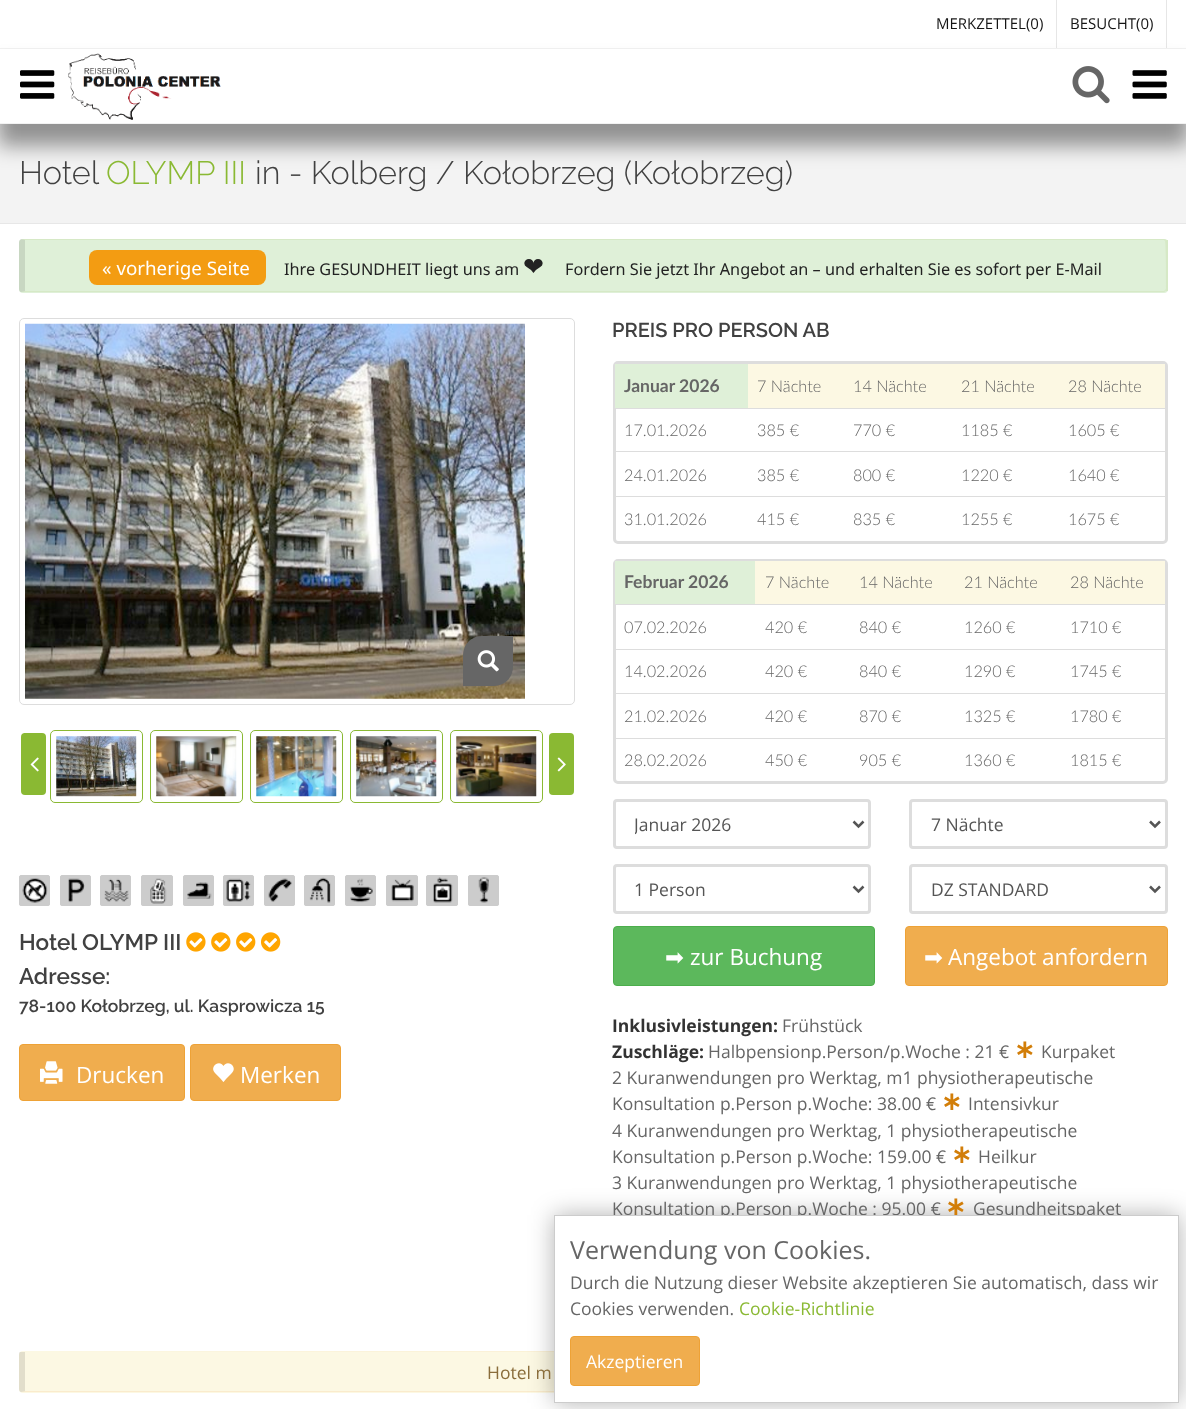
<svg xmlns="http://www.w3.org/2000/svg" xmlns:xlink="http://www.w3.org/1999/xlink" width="1186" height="1409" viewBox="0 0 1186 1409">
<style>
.cls-1{font:15px Open Sans;fill:#151515}
.cls-2{font:300 32.5px Raleway;fill:#414141}
.cls-3{font:300 32.5px Raleway;fill:#8ab933}
.cls-4{font:18.75px Noto Sans;fill:#ffffff}
.cls-5{font:16.25px Noto Sans;fill:#222222}
.cls-6{font:25px DejaVu Sans;fill:#222222}
.cls-7{font:600 22.5px Raleway;fill:#414141}
.cls-8{font:600 17.5px Raleway;fill:#414141}
.cls-9{font:22.5px Open Sans;fill:#ffffff}
.cls-10{font:600 20px Raleway;fill:#414141}
.cls-11{font:bold 17.5px Lato;fill:#666666}
.cls-12{font:300 16.25px Lato;fill:#666666}
.cls-13{font:17.5px Open Sans;fill:#555555}
.cls-14{font:22.5px DejaVu Sans;fill:#ffffff}
.cls-15{font:bold 17.5px Open Sans;fill:#333333}
.cls-16{font:17.5px Open Sans;fill:#666666}
.cls-17{font:bold 25px DejaVu Sans;fill:#d27e09}
.cls-18{font:17.5px Open Sans;fill:#8a6d3b}
.cls-19{font:25px Open Sans;fill:#666666}
.cls-20{font:17.5px Open Sans;fill:#8ab933}
.cls-21{font:17.5px Open Sans;fill:#ffffff}
</style>
<defs>
<clipPath id="clip1"><rect x="635" y="811" width="199" height="27"/></clipPath>
</defs>
<rect width="100%" height="100%" fill="#ffffff"/>
<rect fill="#f2f2f2" x="0" y="48" width="1186" height="1"/>
<rect fill="#e6e6e6" x="1056" y="0" width="1" height="48"/>
<rect fill="#e6e6e6" x="1166" y="0" width="1" height="48"/>
<rect fill="#f3f3f3" x="0" y="124" width="1186" height="99"/>
<rect fill="#000000" fill-opacity="0.4" filter="blur(10px)" x="-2" y="66" width="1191" height="80"/>
<rect fill="#ffffff" x="0" y="49" width="1186" height="74"/>
<rect fill="#f2f2f2" x="0" y="123" width="1186" height="1"/>
<image xlink:href="image0.png" x="20" y="70" width="35" height="29"/>
<image xlink:href="image1.png" x="68" y="53" width="153" height="67"/>
<image xlink:href="image2.png" x="1072" y="66" width="38" height="38"/>
<image xlink:href="image3.png" x="1132" y="70" width="35" height="29"/>
<rect fill="#e7e7e7" x="0" y="223" width="1186" height="1"/>
<rect fill="#dff0d8" x="19" y="239" width="1149" height="54" rx="4"/>
<path fill="#d6e9c6" d="M22 239H21L25 240H1164L1165 241L1167 240L1164 239Z"/>
<path fill="#d6e9c6" d="M1168 291H1166L1165 290L1166 289C1166 285 1166 242 1165 241L1167 240H1168Z"/>
<path fill="#d6e9c6" d="M1166 291L1164 292H21L26 291H1164L1165 290Z"/>
<path fill="#000000" fill-opacity="0.1" d="M25 240L21 239C20 240 19 240 19 242V289C19 291 20 292 21 292L26 291H25Z"/>
<rect fill="#f39c12" x="89" y="250" width="177" height="35" rx="8"/>
<rect fill="none" stroke="#dddddd" x="19.5" y="318.5" width="555" height="386" rx="4.5"/>
<image xlink:href="image4.png" x="25" y="323" width="500" height="376"/>
<path fill="#666666" d="M482 636H513V667C513 677.5 504.5 686 494 686H463V655C463 644.5 471.5 636 482 636Z"/>
<image xlink:href="image5.png" x="477" y="650" width="22" height="22"/>
<rect fill="none" stroke="#8ab933" x="50.5" y="730.5" width="92" height="72" rx="4.5"/>
<image xlink:href="image6.png" x="56" y="736" width="81" height="61"/>
<rect fill="none" stroke="#8ab933" x="150.5" y="730.5" width="92" height="72" rx="4.5"/>
<image xlink:href="image7.png" x="156" y="736" width="81" height="61"/>
<rect fill="none" stroke="#8ab933" x="250.5" y="730.5" width="92" height="72" rx="4.5"/>
<image xlink:href="image8.png" x="256" y="736" width="81" height="61"/>
<rect fill="none" stroke="#8ab933" x="350.5" y="730.5" width="92" height="72" rx="4.5"/>
<image xlink:href="image9.png" x="356" y="736" width="81" height="61"/>
<rect fill="none" stroke="#8ab933" x="450.5" y="730.5" width="92" height="72" rx="4.5"/>
<image xlink:href="image10.png" x="456" y="736" width="81" height="61"/>
<rect fill="#8ab933" x="21" y="733" width="25" height="62" rx="4"/>
<image xlink:href="image11.png" x="30" y="757" width="9" height="15"/>
<rect fill="#8ab933" x="549" y="733" width="25" height="62" rx="4"/>
<image xlink:href="image12.png" x="557" y="757" width="9" height="15"/>
<rect fill="#cccccc" x="19" y="875" width="31" height="31" rx="2.5"/>
<image xlink:href="image13.png" x="22" y="878" width="26" height="25"/>
<rect fill="none" stroke="#cccccc" x="19.5" y="875.5" width="30" height="30" rx="2"/>
<rect fill="#cccccc" x="60" y="875" width="31" height="31" rx="2.5"/>
<image xlink:href="image14.png" x="68" y="878" width="17" height="25"/>
<rect fill="none" stroke="#cccccc" x="60.5" y="875.5" width="30" height="30" rx="2"/>
<rect fill="#cccccc" x="100" y="875" width="31" height="31" rx="2.5"/>
<image xlink:href="image15.png" x="104" y="878" width="25" height="24"/>
<rect fill="none" stroke="#cccccc" x="100.5" y="875.5" width="30" height="30" rx="2"/>
<rect fill="#cccccc" x="141" y="875" width="32" height="31" rx="2.5"/>
<image xlink:href="image16.png" x="150" y="878" width="17" height="26"/>
<rect fill="none" stroke="#cccccc" x="141.5" y="875.5" width="31" height="30" rx="2"/>
<rect fill="#cccccc" x="183" y="875" width="31" height="31" rx="2.5"/>
<image xlink:href="image17.png" x="187" y="882" width="25" height="17"/>
<rect fill="none" stroke="#cccccc" x="183.5" y="875.5" width="30" height="30" rx="2"/>
<rect fill="#cccccc" x="223" y="875" width="31" height="31" rx="2.5"/>
<image xlink:href="image18.png" x="226" y="878" width="25" height="24"/>
<rect fill="none" stroke="#cccccc" x="223.5" y="875.5" width="30" height="30" rx="2"/>
<rect fill="#cccccc" x="264" y="875" width="31" height="31" rx="2.5"/>
<image xlink:href="image19.png" x="268" y="878" width="24" height="24"/>
<rect fill="none" stroke="#cccccc" x="264.5" y="875.5" width="30" height="30" rx="2"/>
<rect fill="#cccccc" x="304" y="875" width="31" height="31" rx="2.5"/>
<image xlink:href="image20.png" x="309" y="877" width="22" height="26"/>
<rect fill="none" stroke="#cccccc" x="304.5" y="875.5" width="30" height="30" rx="2"/>
<rect fill="#cccccc" x="345" y="875" width="31" height="31" rx="2.5"/>
<image xlink:href="image21.png" x="350" y="878" width="23" height="25"/>
<rect fill="none" stroke="#cccccc" x="345.5" y="875.5" width="30" height="30" rx="2"/>
<rect fill="#cccccc" x="386" y="875" width="32" height="31" rx="2.5"/>
<image xlink:href="image22.png" x="391" y="879" width="23" height="23"/>
<rect fill="none" stroke="#cccccc" x="386.5" y="875.5" width="31" height="30" rx="2"/>
<rect fill="#cccccc" x="426" y="875" width="32" height="31" rx="2.5"/>
<image xlink:href="image23.png" x="433" y="877" width="20" height="26"/>
<rect fill="none" stroke="#cccccc" x="426.5" y="875.5" width="31" height="30" rx="2"/>
<rect fill="#cccccc" x="468" y="875" width="31" height="31" rx="2.5"/>
<image xlink:href="image24.png" x="478" y="877" width="11" height="26"/>
<rect fill="none" stroke="#cccccc" x="468.5" y="875.5" width="30" height="30" rx="2"/>
<image xlink:href="image25.png" x="186" y="932" width="95" height="20"/>
<rect fill="#f0ad4e" stroke="#eea236" x="19.5" y="1044.5" width="165" height="56" rx="3.5"/>
<image xlink:href="image26.png" x="40" y="1061" width="23" height="23"/>
<rect fill="#f0ad4e" stroke="#eea236" x="190.5" y="1044.5" width="150" height="56" rx="3.5"/>
<image xlink:href="image27.png" x="213" y="1063" width="21" height="19"/>
<rect fill="none" stroke="#dddddd" stroke-width="3" x="614.5" y="362.5" width="552" height="180" rx="3.5"/>
<rect fill="#dff0d8" x="615" y="364" width="133" height="44"/>
<rect fill="#fcf8e3" x="748" y="364" width="417" height="44"/>
<rect fill="#dddddd" x="614" y="408" width="552" height="1"/>
<rect fill="#dddddd" x="614" y="451" width="552" height="1"/>
<rect fill="#dddddd" x="614" y="496" width="552" height="1"/>
<rect fill="none" stroke="#dddddd" stroke-width="3" x="614.5" y="560.5" width="552" height="222" rx="3.5"/>
<rect fill="#dff0d8" x="615" y="561" width="140" height="43"/>
<rect fill="#fcf8e3" x="755" y="561" width="410" height="43"/>
<rect fill="#dddddd" x="614" y="604" width="552" height="1"/>
<rect fill="#dddddd" x="614" y="649" width="552" height="1"/>
<rect fill="#dddddd" x="614" y="693" width="552" height="1"/>
<rect fill="#dddddd" x="614" y="738" width="552" height="1"/>
<rect fill="none" stroke="#dddddd" stroke-width="3" x="614.5" y="800.5" width="255" height="47" rx="2.5"/>
<path fill="none" stroke="#555555" stroke-width="2.5" d="M853.5 821.5L858.5 826.5L863.5 821.5"/>
<rect fill="none" stroke="#dddddd" stroke-width="3" x="910.5" y="800.5" width="256" height="47" rx="2.5"/>
<path fill="none" stroke="#555555" stroke-width="2.5" d="M1150 821.5L1155 826.5L1160 821.5"/>
<rect fill="none" stroke="#dddddd" stroke-width="3" x="614.5" y="865.5" width="255" height="47" rx="2.5"/>
<path fill="none" stroke="#555555" stroke-width="2.5" d="M853.5 886.5L858.5 891.5L863.5 886.5"/>
<rect fill="none" stroke="#dddddd" stroke-width="3" x="910.5" y="865.5" width="256" height="47" rx="2.5"/>
<path fill="none" stroke="#555555" stroke-width="2.5" d="M1150 886.5L1155 891.5L1160 886.5"/>
<rect fill="#5cb85c" stroke="#4cae4c" x="613.5" y="926.5" width="261" height="59" rx="3.5"/>
<rect fill="#f0ad4e" stroke="#eea236" x="905.5" y="926.5" width="262" height="59" rx="3.5"/>
<rect fill="#fcf8e3" x="19" y="1351" width="1149" height="42" rx="4"/>
<path fill="#faebcc" d="M25 1352H20L975 1351C1039 1351 1120 1308 1167 1352L1165 1353L1164 1352Z"/>
<path fill="#faebcc" d="M1166 1391L1164 1392H21L26 1391H1164L1165 1390Z"/>
<path fill="#000000" fill-opacity="0.1" d="M21 1392C20 1392 19 1391 19 1389V1355C19 1354 19 1352 20 1352H25V1391H26Z"/>
<rect fill="#000000" fill-opacity="0.3" filter="blur(12.5px)" x="554" y="1215" width="625" height="188"/>
<text class="cls-1" x="936" y="29">MERKZETTEL(0)</text>
<text class="cls-1" x="1070" y="29">BESUCHT(0)</text>
<text class="cls-2" x="19" y="184">Hotel</text>
<text class="cls-3" x="106" y="184">OLYMP III</text>
<text class="cls-2" x="255" y="184">in - Kolberg / Kołobrzeg (Kołobrzeg)</text>
<text class="cls-4" x="102" y="275">« vorherige Seite</text>
<text class="cls-5" x="284" y="275">Ihre GESUNDHEIT liegt uns am</text>
<text class="cls-6" x="523" y="275">❤</text>
<text class="cls-5" x="565" y="275">Fordern Sie jetzt Ihr Angebot an – und erhalten Sie es sofort per E-Mail</text>
<text class="cls-7"><tspan x="19" y="950">Hotel OLYMP III</tspan><tspan x="19" y="984">Adresse:</tspan></text>
<text class="cls-8" x="19" y="1012">78-100 Kołobrzeg, ul. Kasprowicza 15</text>
<text class="cls-9" x="76" y="1083">Drucken</text>
<text class="cls-9" x="240" y="1083">Merken</text>
<text class="cls-10" x="612" y="337">PREIS PRO PERSON AB</text>
<text class="cls-11" x="624" y="392">Januar 2026</text>
<text class="cls-12" x="757" y="392">7 Nächte</text>
<text class="cls-12" x="853" y="392">14 Nächte</text>
<text class="cls-12" x="961" y="392">21 Nächte</text>
<text class="cls-12" x="1068" y="392">28 Nächte</text>
<text class="cls-12" x="624" y="436">17.01.2026</text>
<text class="cls-12" x="757" y="436">385 €</text>
<text class="cls-12" x="853" y="436">770 €</text>
<text class="cls-12" x="961" y="436">1185 €</text>
<text class="cls-12" x="1068" y="436">1605 €</text>
<text class="cls-12" x="624" y="481">24.01.2026</text>
<text class="cls-12" x="757" y="481">385 €</text>
<text class="cls-12" x="853" y="481">800 €</text>
<text class="cls-12" x="961" y="481">1220 €</text>
<text class="cls-12" x="1068" y="481">1640 €</text>
<text class="cls-12" x="624" y="525">31.01.2026</text>
<text class="cls-12" x="757" y="525">415 €</text>
<text class="cls-12" x="853" y="525">835 €</text>
<text class="cls-12" x="961" y="525">1255 €</text>
<text class="cls-12" x="1068" y="525">1675 €</text>
<text class="cls-11" x="624" y="588">Februar 2026</text>
<text class="cls-12" x="765" y="588">7 Nächte</text>
<text class="cls-12" x="859" y="588">14 Nächte</text>
<text class="cls-12" x="964" y="588">21 Nächte</text>
<text class="cls-12" x="1070" y="588">28 Nächte</text>
<text class="cls-12" x="624" y="633">07.02.2026</text>
<text class="cls-12" x="765" y="633">420 €</text>
<text class="cls-12" x="859" y="633">840 €</text>
<text class="cls-12" x="964" y="633">1260 €</text>
<text class="cls-12" x="1070" y="633">1710 €</text>
<text class="cls-12" x="624" y="677">14.02.2026</text>
<text class="cls-12" x="765" y="677">420 €</text>
<text class="cls-12" x="859" y="677">840 €</text>
<text class="cls-12" x="964" y="677">1290 €</text>
<text class="cls-12" x="1070" y="677">1745 €</text>
<text class="cls-12" x="624" y="722">21.02.2026</text>
<text class="cls-12" x="765" y="722">420 €</text>
<text class="cls-12" x="859" y="722">870 €</text>
<text class="cls-12" x="964" y="722">1325 €</text>
<text class="cls-12" x="1070" y="722">1780 €</text>
<text class="cls-12" x="624" y="766">28.02.2026</text>
<text class="cls-12" x="765" y="766">450 €</text>
<text class="cls-12" x="859" y="766">905 €</text>
<text class="cls-12" x="964" y="766">1360 €</text>
<text class="cls-12" x="1070" y="766">1815 €</text>
<g clip-path="url(#clip1)">
<text class="cls-13" x="634" y="831">Januar 2026</text>
</g>
<text class="cls-13" x="931" y="831">7 Nächte</text>
<text class="cls-13" x="634" y="896">1 Person</text>
<text class="cls-13" x="931" y="896">DZ STANDARD</text>
<text class="cls-14" x="665" y="965">➡</text>
<text class="cls-9" x="690" y="965">zur Buchung</text>
<text class="cls-14" x="924" y="965">➡</text>
<text class="cls-9" x="948" y="965">Angebot anfordern</text>
<text class="cls-15" x="612" y="1032">Inklusivleistungen:</text>
<text class="cls-16" x="782" y="1032">Frühstück</text>
<text class="cls-15" x="612" y="1058">Zuschläge:</text>
<text class="cls-16" x="708" y="1058">Halbpensionp.Person/p.Woche : 21 €</text>
<text class="cls-17" x="1014" y="1058">∗</text>
<text class="cls-16" x="1041" y="1058">Kurpaket</text>
<text class="cls-16"><tspan x="612" y="1084">2 Kuranwendungen pro Werktag, m1 physiotherapeutische</tspan><tspan x="612" y="1110">Konsultation p.Person p.Woche: 38.00 €</tspan></text>
<text class="cls-17" x="941" y="1110">∗</text>
<text class="cls-16" x="968" y="1110">Intensivkur</text>
<text class="cls-16"><tspan x="612" y="1137">4 Kuranwendungen pro Werktag, 1 physiotherapeutische</tspan><tspan x="612" y="1163">Konsultation p.Person p.Woche: 159.00 €</tspan></text>
<text class="cls-17" x="951" y="1163">∗</text>
<text class="cls-16" x="978" y="1163">Heilkur</text>
<text class="cls-16"><tspan x="612" y="1189">3 Kuranwendungen pro Werktag, 1 physiotherapeutische</tspan><tspan x="612" y="1215">Konsultation p.Person p.Woche : 95.00 €</tspan></text>
<text class="cls-17" x="945" y="1215">∗</text>
<text class="cls-16" x="973" y="1215">Gesundheitspaket</text>
<text class="cls-18" x="487" y="1379">Hotel m</text>
<rect fill="#ffffff" stroke="#cccccc" x="554.5" y="1215.5" width="624" height="187"/>
<text class="cls-19" x="570" y="1259">Verwendung von Cookies.</text>
<text class="cls-16"><tspan x="570" y="1289">Durch die Nutzung dieser Website akzeptieren Sie automatisch, dass wir</tspan><tspan x="570" y="1315">Cookies verwenden.</tspan></text>
<text class="cls-20" x="739" y="1315">Cookie-Richtlinie</text>
<rect fill="#f0ad4e" stroke="#eea236" x="570.5" y="1336.5" width="129" height="49" rx="3.5"/>
<text class="cls-21" x="586" y="1368">Akzeptieren</text>
</svg>
